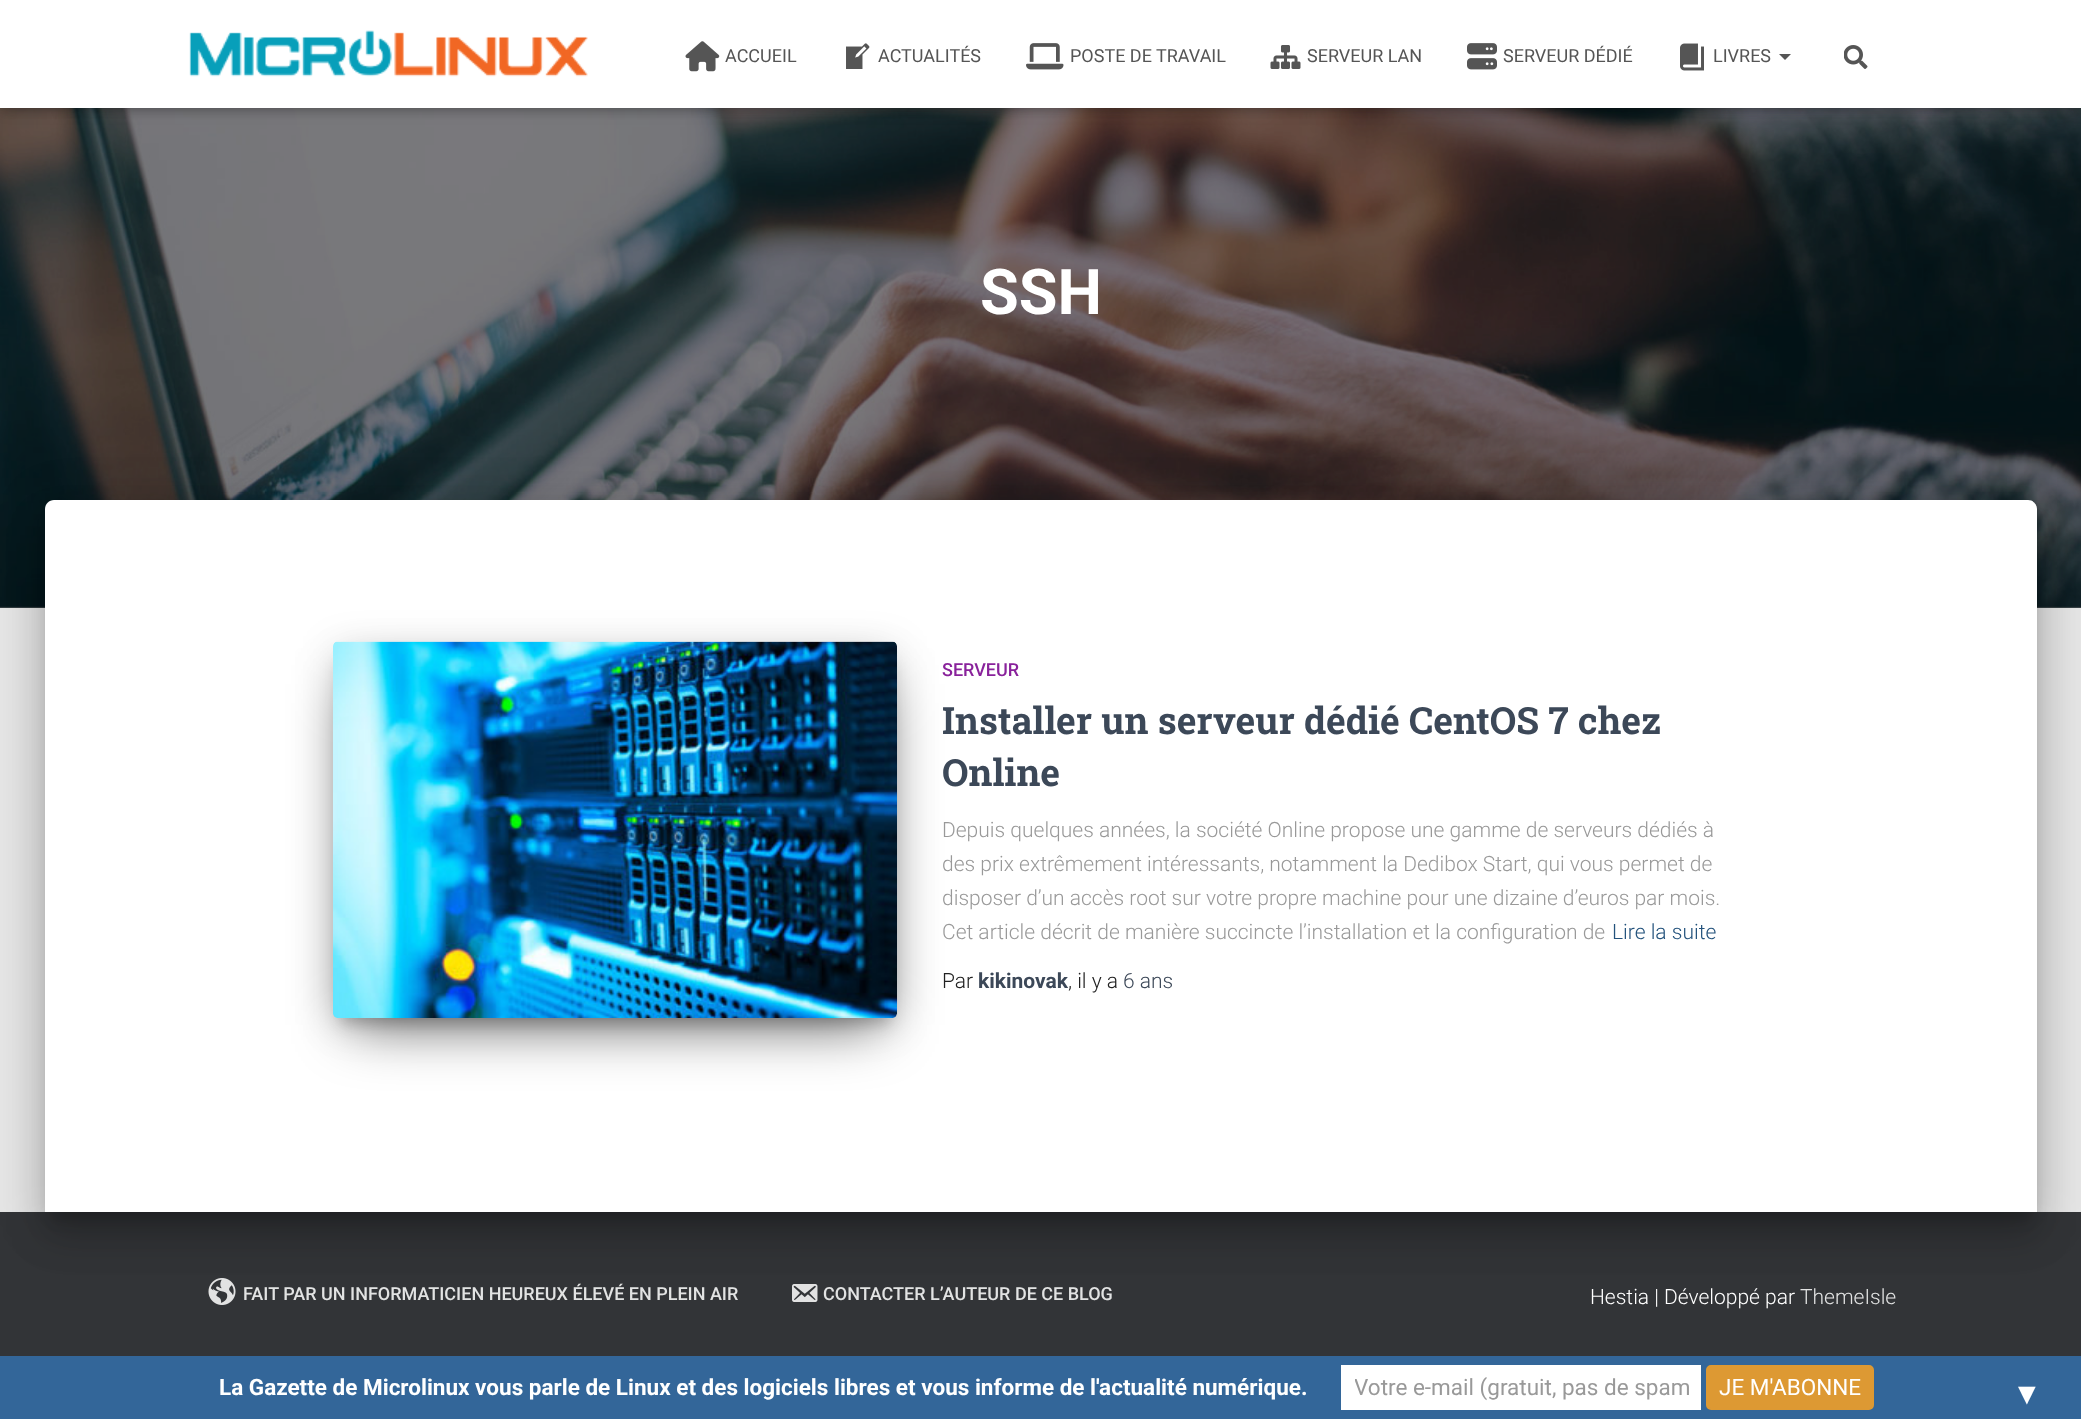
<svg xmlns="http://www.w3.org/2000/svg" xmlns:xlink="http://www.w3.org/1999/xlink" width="2081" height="1419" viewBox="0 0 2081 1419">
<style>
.cls-1{font:18px Roboto;fill:#555555}
.cls-2{font:bold 63px Roboto;fill:#ffffff}
.cls-3{font:500 18px Roboto;fill:#89229b}
.cls-4{font:bold 37.5px Roboto Slab;fill:#3c4858}
.cls-5{font:300 21px Roboto;fill:#999999}
.cls-6{font:300 21px Roboto;fill:#23527c}
.cls-7{font:300 21px Roboto;fill:#212121}
.cls-8{font:bold 21px Roboto;fill:#3c4858}
.cls-9{font:300 21px Roboto;fill:#3c4858}
.cls-10{font:500 18px Roboto;fill:#e2e3e3}
.cls-11{font:300 21px Roboto;fill:#ffffff}
.cls-12{font:300 21px Roboto;fill:#e2e3e3}
.cls-13{font:bold 22.5px Roboto;fill:#ffffff}
.cls-14{font:22.5px Roboto;fill:#999999}
.cls-15{font:22.5px Roboto;fill:#ffffff}
.cls-16{font:30px Liberation Sans;fill:#ffffff}
</style>
<defs>
<clipPath id="clip1"><rect x="1355" y="1374" width="334" height="27"/></clipPath>
</defs>
<rect width="100%" height="100%" fill="#e5e5e5"/>
<rect fill="#737373" x="0" y="606" width="2081" height="2"/>
<image xlink:href="image8.png" x="0" y="108" width="2081" height="500"/>
<rect fill="#000000" fill-opacity="0.1" filter="blur(4px)" x="3" y="9" width="2076" height="102"/>
<rect fill="#000000" fill-opacity="0.12" filter="blur(7.5px)" x="0" y="2" width="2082" height="108"/>
<rect fill="#000000" fill-opacity="0.42" filter="blur(7.5px)" x="9" y="11" width="2064" height="90"/>
<rect fill="#ffffff" x="0" y="0" width="2081" height="108"/>
<image xlink:href="image0.png" x="189" y="30" width="399" height="47"/>
<image xlink:href="image1.png" x="685" y="41" width="35" height="31"/>
<image xlink:href="image2.png" x="846" y="43" width="24" height="26"/>
<image xlink:href="image3.png" x="1026" y="43" width="38" height="27"/>
<image xlink:href="image4.png" x="1270" y="45" width="31" height="24"/>
<image xlink:href="image5.png" x="1467" y="43" width="30" height="27"/>
<image xlink:href="image6.png" x="1680" y="43" width="24" height="28"/>
<path fill="#555555" d="M1779 54H1791L1785 60Z"/>
<image xlink:href="image7.png" x="1844" y="45" width="24" height="24"/>
<rect fill="#323437" x="0" y="1212" width="2081" height="144"/>
<rect fill="#000000" fill-opacity="0.2" filter="blur(7.5px)" x="53" y="519" width="1977" height="698" rx="1.5"/>
<rect fill="#000000" fill-opacity="0.12" filter="blur(22.5px)" x="38" y="501" width="2007" height="728" rx="17"/>
<rect fill="#000000" fill-opacity="0.14" filter="blur(18px)" x="42" y="521" width="1998" height="718" rx="12"/>
<path fill="#ffffff" d="M54 500H2028C2033 500 2037 504 2037 509V1212H45V509C45 504 49 500 54 500Z"/>
<rect fill="#000000" fill-opacity="0.2" filter="blur(7.5px)" x="341" y="662" width="549" height="361"/>
<rect fill="#000000" fill-opacity="0.12" filter="blur(19px)" x="333" y="648" width="564" height="377" rx="5"/>
<rect fill="#000000" fill-opacity="0.56" filter="blur(28.5px)" x="351" y="684" width="528" height="341"/>
<image xlink:href="image9.png" x="333" y="641" width="564" height="377"/>
<image xlink:href="image10.png" x="208" y="1278" width="28" height="27"/>
<image xlink:href="image11.png" x="792" y="1284" width="26" height="18"/>
<rect fill="#336699" x="0" y="1356" width="2081" height="63"/>
<rect fill="#ffffff" x="1341" y="1365" width="360" height="45"/>
<rect fill="#dd9933" stroke="#dd9933" stroke-width="2" x="1707" y="1366" width="166" height="43" rx="4"/>
<text class="cls-1" x="725" y="62">ACCUEIL</text>
<text class="cls-1" x="878" y="62">ACTUALITÉS</text>
<text class="cls-1" x="1070" y="62">POSTE DE TRAVAIL</text>
<text class="cls-1" x="1307" y="62">SERVEUR LAN</text>
<text class="cls-1" x="1503" y="62">SERVEUR DÉDIÉ</text>
<text class="cls-1" x="1713" y="62">LIVRES</text>
<text class="cls-2" x="980" y="314">SSH</text>
<text class="cls-3" x="942" y="676">SERVEUR</text>
<text class="cls-4"><tspan x="942" y="734">Installer un serveur dédié CentOS 7 chez</tspan><tspan x="942" y="786">Online</tspan></text>
<text class="cls-5"><tspan x="942" y="837">Depuis quelques années, la société Online propose une gamme de serveurs dédiés à</tspan><tspan x="942" y="871">des prix extrêmement intéressants, notamment la Dedibox Start, qui vous permet de</tspan><tspan x="942" y="905">disposer d’un accès root sur votre propre machine pour une dizaine d’euros par mois.</tspan><tspan x="942" y="939">Cet article décrit de manière succincte l’installation et la configuration de</tspan></text>
<text class="cls-6" x="1612" y="939">Lire la suite</text>
<text class="cls-7" x="942" y="988">Par</text>
<text class="cls-8" x="978" y="988">kikinovak</text>
<text class="cls-7" x="1068" y="988">, il y a</text>
<text class="cls-9" x="1123" y="988">6 ans</text>
<text class="cls-10" x="243" y="1300">FAIT PAR UN INFORMATICIEN HEUREUX ÉLEVÉ EN PLEIN AIR</text>
<text class="cls-10" x="823" y="1300">CONTACTER L’AUTEUR DE CE BLOG</text>
<text class="cls-11" x="1590" y="1304">Hestia | Développé par</text>
<text class="cls-12" x="1800" y="1304">ThemeIsle</text>
<text class="cls-13" x="219" y="1395">La Gazette de Microlinux vous parle de Linux et des logiciels libres et vous informe de l'actualité numérique.</text>
<g clip-path="url(#clip1)">
<text class="cls-14" x="1354" y="1395">Votre e-mail (gratuit, pas de spam</text>
</g>
<text class="cls-15" x="1719" y="1395">JE M'ABONNE</text>
<text class="cls-16" x="2012" y="1404">▼</text>
</svg>
